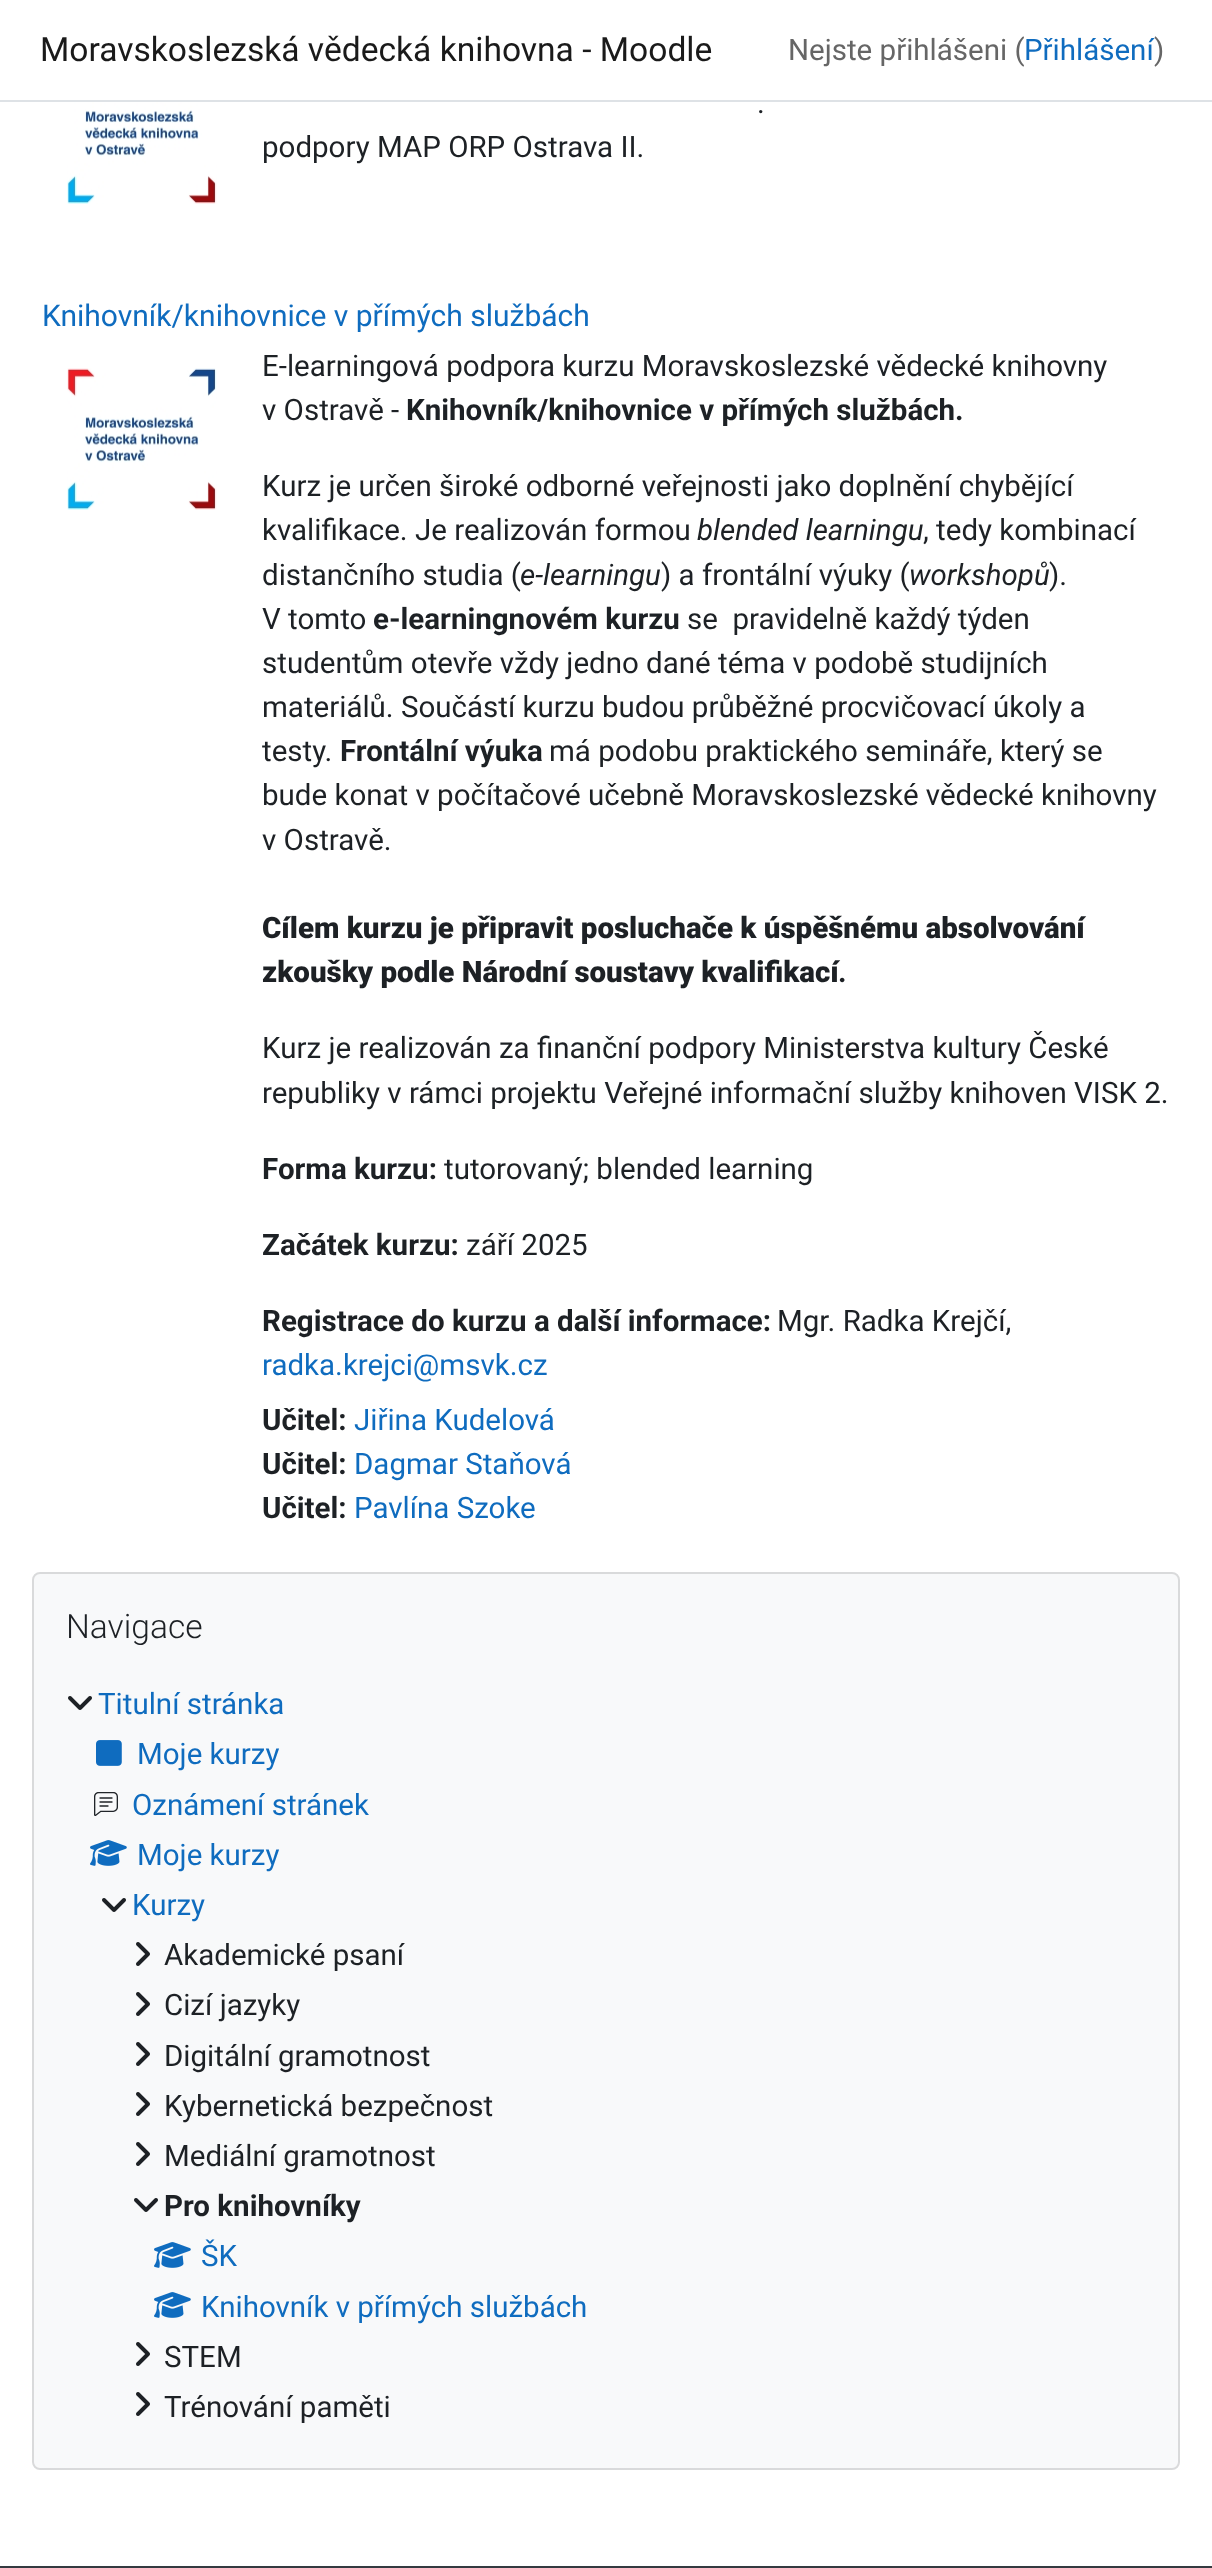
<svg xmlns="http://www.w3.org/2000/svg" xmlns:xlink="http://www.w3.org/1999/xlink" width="1212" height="2568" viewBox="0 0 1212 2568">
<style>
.cls-1{font:33.6px Roboto;fill:#1a1a1a}
.cls-2{font:29.5px Roboto;fill:#666666}
.cls-3{font:29.5px Roboto;fill:#0f6cbf}
.cls-4{font:29.5px Roboto;fill:#1d2125}
.cls-5{font:30px Roboto;fill:#0f6cbf}
.cls-6{font:bold 29.5px Roboto;fill:#1d2125}
.cls-7{font:italic 29.5px Roboto;fill:#1d2125}
.cls-8{font:900 29.5px Roboto;fill:#1d2125}
.cls-9{font:300 33.6px Roboto;fill:#1d2125}
</style>
<rect width="100%" height="100%" fill="#ffffff"/>
<rect fill="#dee2e6" x="0" y="100" width="1212" height="2"/>
<image xlink:href="image0.png" x="67" y="102" width="150" height="102"/>
<image xlink:href="image1.png" x="67" y="368" width="150" height="142"/>
<rect fill="#f8f9fa" x="32" y="1572" width="1148" height="898" rx="8"/>
<rect fill="none" stroke="#000000" stroke-opacity="0.12" stroke-width="2" x="33" y="1573" width="1146" height="896" rx="7"/>
<image xlink:href="image2.png" x="68" y="1696" width="24" height="14"/>
<image xlink:href="image3.png" x="96" y="1740" width="26" height="26"/>
<image xlink:href="image4.png" x="94" y="1792" width="24" height="24"/>
<image xlink:href="image5.png" x="90" y="1840" width="37" height="26"/>
<image xlink:href="image2.png" x="102" y="1898" width="24" height="14"/>
<image xlink:href="image6.png" x="136" y="1942" width="14" height="24"/>
<image xlink:href="image6.png" x="136" y="1992" width="14" height="24"/>
<image xlink:href="image6.png" x="136" y="2042" width="14" height="24"/>
<image xlink:href="image6.png" x="136" y="2092" width="14" height="24"/>
<image xlink:href="image6.png" x="136" y="2142" width="14" height="24"/>
<image xlink:href="image2.png" x="134" y="2198" width="24" height="14"/>
<image xlink:href="image5.png" x="154" y="2242" width="37" height="26"/>
<image xlink:href="image5.png" x="154" y="2292" width="37" height="26"/>
<image xlink:href="image6.png" x="136" y="2342" width="14" height="24"/>
<image xlink:href="image6.png" x="136" y="2392" width="14" height="24"/>
<rect fill="#343a40" x="0" y="2566" width="1212" height="2"/>
<text class="cls-1" x="40" y="61">Moravskoslezská vědecká knihovna - Moodle</text>
<text class="cls-2" x="788" y="60">Nejste přihlášeni (</text>
<text class="cls-3" x="1024" y="60">Přihlášení</text>
<text class="cls-2" x="1154" y="60">)</text>
<text class="cls-4" x="757" y="113">.</text>
<text class="cls-4" x="262" y="157">podpory MAP ORP Ostrava II.</text>
<text class="cls-5" x="42" y="326">Knihovník/knihovnice v přímých službách</text>
<text class="cls-4"><tspan x="262" y="376">E-learningová podpora kurzu Moravskoslezské vědecké knihovny</tspan><tspan x="262" y="420">v Ostravě -</tspan></text>
<text class="cls-6" x="406" y="420">Knihovník/knihovnice v přímých službách.</text>
<text class="cls-4"><tspan x="262" y="496">Kurz je určen široké odborné veřejnosti jako doplnění chybějící</tspan><tspan x="262" y="540">kvalifikace. Je realizován formou</tspan></text>
<text class="cls-7" x="697" y="540">blended learningu</text>
<text class="cls-4" x="923" y="540">, tedy kombinací</text>
<text class="cls-4" x="262" y="585">distančního studia (</text>
<text class="cls-7" x="520" y="585">e-learningu</text>
<text class="cls-4" x="661" y="585">) a frontální výuky (</text>
<text class="cls-7" x="909" y="585">workshopů</text>
<text class="cls-4" x="1049" y="585">).</text>
<text class="cls-4" x="262" y="629">V tomto</text>
<text class="cls-6" x="373" y="629">e-learningnovém kurzu</text>
<text class="cls-4" xml:space="preserve" x="687" y="629">se  pravidelně každý týden</text>
<text class="cls-4"><tspan x="262" y="673">studentům otevře vždy jedno dané téma v podobě studijních</tspan><tspan x="262" y="717">materiálů. Součástí kurzu budou průběžné procvičovací úkoly a</tspan><tspan x="262" y="761">testy.</tspan></text>
<text class="cls-6" x="340" y="761">Frontální výuka</text>
<text class="cls-4" x="549" y="761">má podobu praktického semináře, který se</text>
<text class="cls-4"><tspan x="262" y="805">bude konat v počítačové učebně Moravskoslezské vědecké knihovny</tspan><tspan x="262" y="850">v Ostravě.</tspan></text>
<text class="cls-8"><tspan x="262" y="938">Cílem kurzu je připravit posluchače k úspěšnému absolvování</tspan><tspan x="262" y="982">zkoušky podle Národní soustavy kvalifikací</tspan></text>
<text class="cls-6" x="838" y="982">.</text>
<text class="cls-4"><tspan x="262" y="1058">Kurz je realizován za finanční podpory Ministerstva kultury České</tspan><tspan x="262" y="1103">republiky v rámci projektu Veřejné informační služby knihoven VISK 2.</tspan></text>
<text class="cls-6" x="262" y="1179">Forma kurzu:</text>
<text class="cls-4" x="444" y="1179">tutorovaný; blended learning</text>
<text class="cls-6" x="262" y="1255">Začátek kurzu:</text>
<text class="cls-4" x="466" y="1255">září 2025</text>
<text class="cls-6" x="262" y="1331">Registrace do kurzu a další informace:</text>
<text class="cls-4" x="777" y="1331">Mgr. Radka Krejčí,</text>
<text class="cls-3" x="262" y="1375">radka.krejci@msvk.cz</text>
<text class="cls-6" x="262" y="1430">Učitel:</text>
<text class="cls-3" x="354" y="1430">Jiřina Kudelová</text>
<text class="cls-6" x="262" y="1474">Učitel:</text>
<text class="cls-3" x="354" y="1474">Dagmar Staňová</text>
<text class="cls-6" x="262" y="1518">Učitel:</text>
<text class="cls-3" x="354" y="1518">Pavlína Szoke</text>
<text class="cls-9" x="66" y="1638">Navigace</text>
<text class="cls-3" x="98" y="1714">Titulní stránka</text>
<text class="cls-3" x="137" y="1764">Moje kurzy</text>
<text class="cls-3" x="132" y="1815">Oznámení stránek</text>
<text class="cls-3" x="137" y="1865">Moje kurzy</text>
<text class="cls-3" x="132" y="1915">Kurzy</text>
<text class="cls-4"><tspan x="164" y="1965">Akademické psaní</tspan><tspan x="164" y="2015">Cizí jazyky</tspan><tspan x="164" y="2066">Digitální gramotnost</tspan><tspan x="164" y="2116">Kybernetická bezpečnost</tspan><tspan x="164" y="2166">Mediální gramotnost</tspan></text>
<text class="cls-6" x="164" y="2216">Pro knihovníky</text>
<text class="cls-3"><tspan x="201" y="2266">ŠK</tspan><tspan x="201" y="2317">Knihovník v přímých službách</tspan></text>
<text class="cls-4"><tspan x="164" y="2367">STEM</tspan><tspan x="164" y="2417">Trénování paměti</tspan></text>
</svg>
